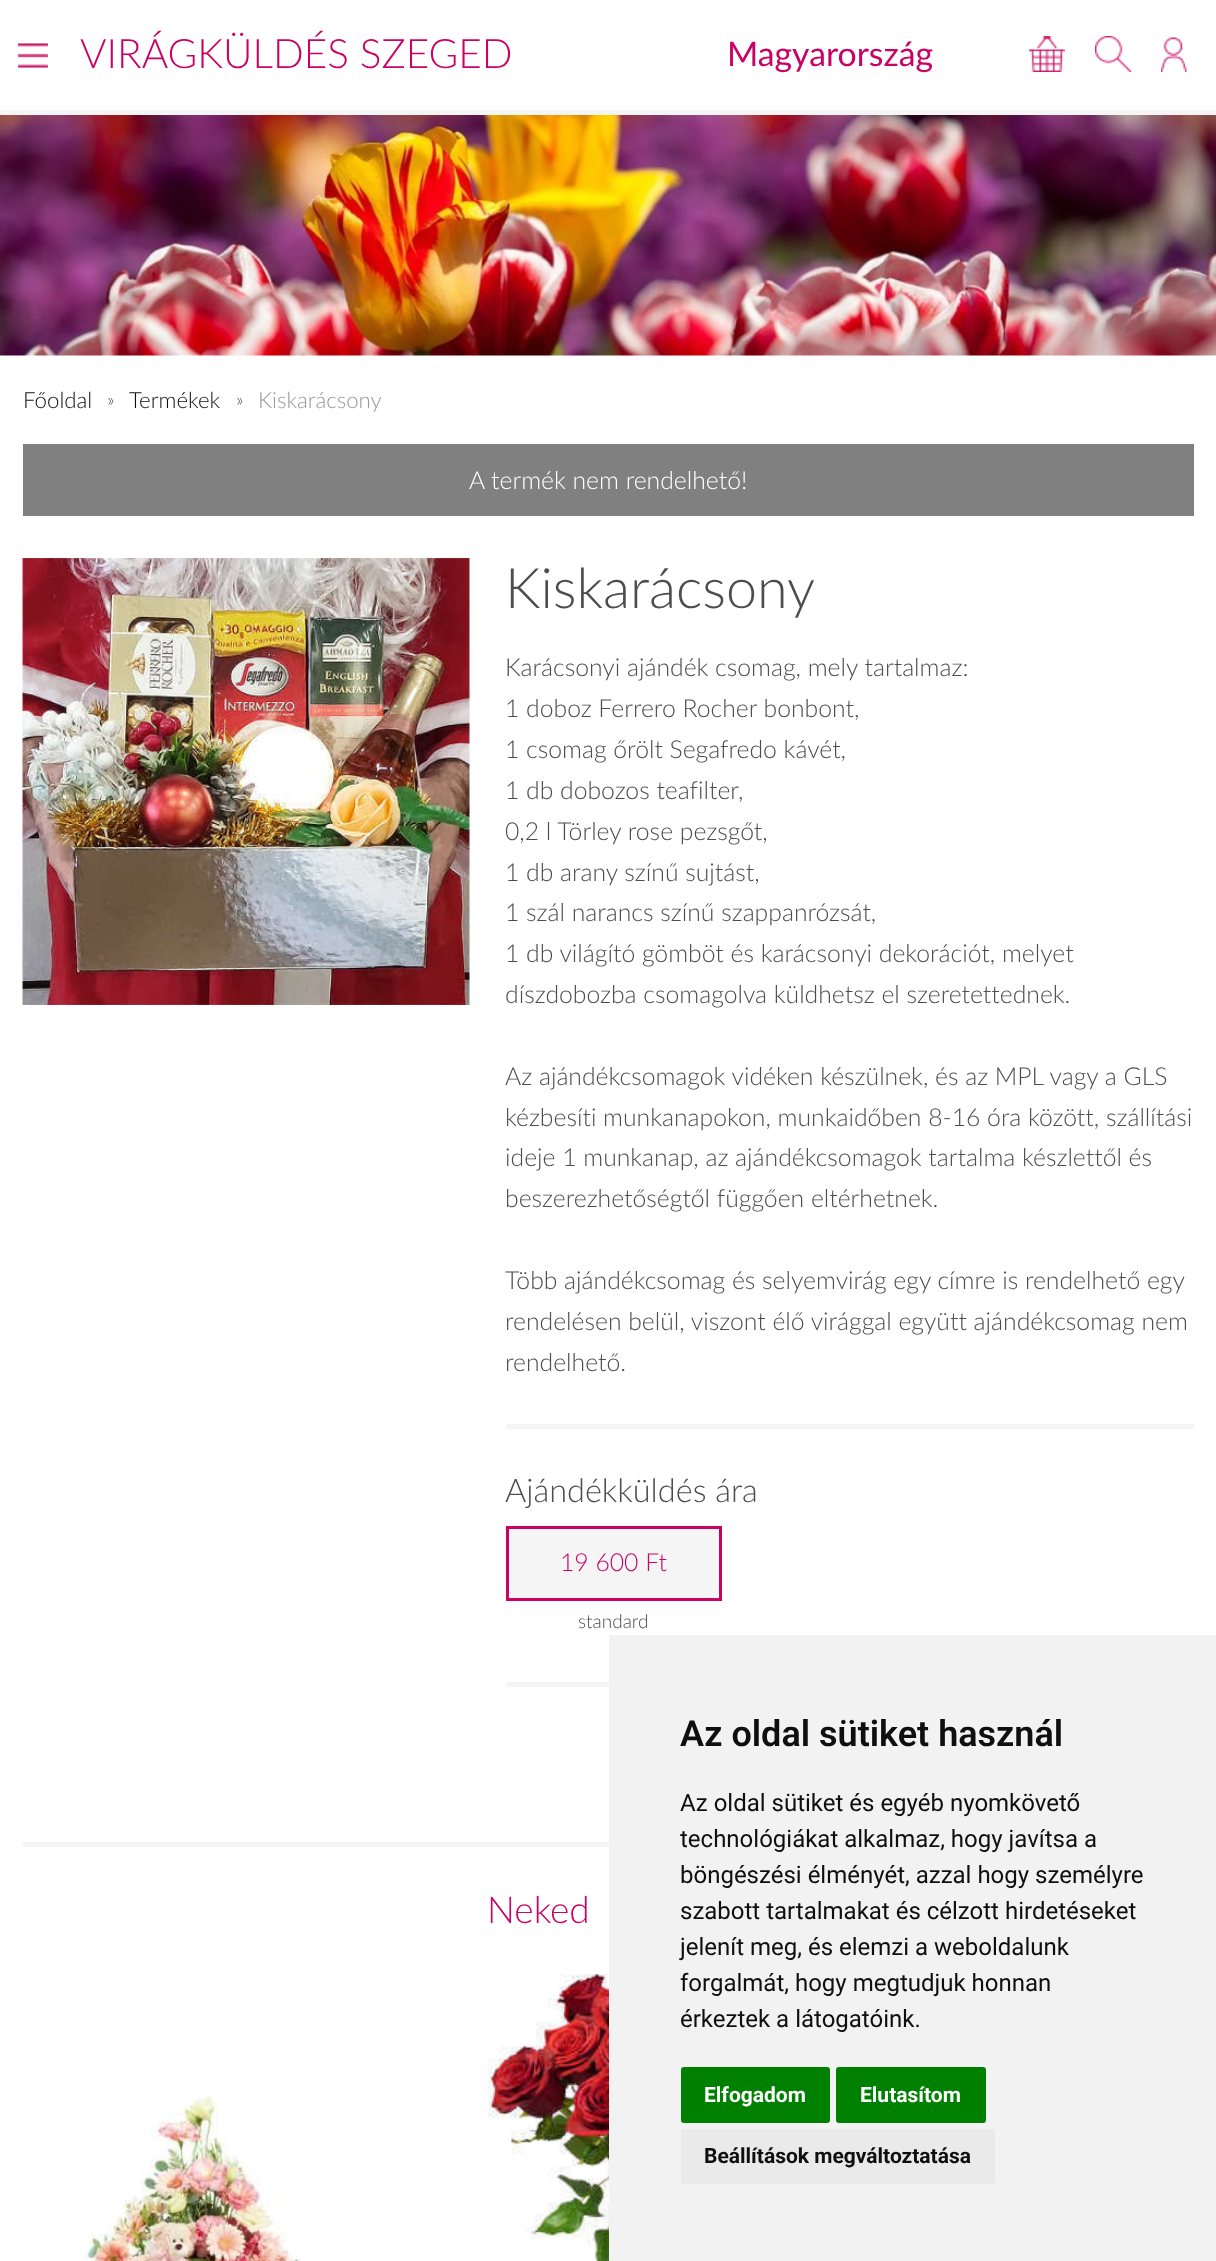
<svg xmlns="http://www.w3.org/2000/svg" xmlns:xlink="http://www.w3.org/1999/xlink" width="1216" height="2261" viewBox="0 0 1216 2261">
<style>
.cls-1{font:300 40.5px Lato;fill:#ca0264}
.cls-2{font:33.75px Lato;fill:#ca0264}
.cls-3{font:300 22.25px Lato;fill:#0f0f0f}
.cls-4{font:300 18px Lato;fill:#4d4d4d}
.cls-5{font:300 22.25px Lato;fill:#999999}
.cls-6{font:300 24.75px Lato;fill:#ffffff}
.cls-7{font:300 55.75px Lato;fill:#4d4d4d}
.cls-8{font:300 24.75px Lato;fill:#4d4d4d}
.cls-9{font:300 32.5px Lato;fill:#4d4d4d}
.cls-10{font:300 24.75px Lato;fill:#ca0264}
.cls-11{font:300 19px Lato;fill:#4d4d4d}
.cls-12{font:300 37px Lato;fill:#ca0264}
.cls-13{font:600 36px Roboto;fill:#0f0f0f}
.cls-14{font:24px Roboto;fill:#0f0f0f}
.cls-15{font:bold 21px Roboto;fill:#ffffff}
.cls-16{font:bold 21px Roboto;fill:#0f0f0f}
</style>
<rect width="100%" height="100%" fill="#ffffff"/>
<rect fill="#f5f5f5" x="0" y="110" width="1216" height="5"/>
<image xlink:href="image0.png" x="18" y="43" width="30" height="25"/>
<image xlink:href="image1.png" x="1029" y="36" width="36" height="36"/>
<image xlink:href="image2.png" x="1095" y="36" width="36" height="36"/>
<image xlink:href="image3.png" x="1161" y="37" width="26" height="35"/>
<image xlink:href="image4.png" x="0" y="115" width="1216" height="241"/>
<rect fill="#808080" x="23" y="444" width="1171" height="72"/>
<rect fill="#f5f5f5" x="23" y="1842" width="586" height="5"/>
<image xlink:href="image5.png" x="22" y="558" width="448" height="447"/>
<rect fill="#f5f5f5" x="506" y="1424" width="688" height="5"/>
<rect fill="#f5f5f5" stroke="#ca0264" stroke-width="3" x="507.5" y="1527.5" width="213" height="72"/>
<rect fill="#f5f5f5" x="506" y="1682" width="103" height="5"/>
<image xlink:href="image6.png" x="84" y="2095" width="217" height="166"/>
<image xlink:href="image7.png" x="487" y="1974" width="122" height="287"/>
<rect fill="#f2f2f2" x="609" y="1635" width="607" height="626"/>
<rect fill="#008000" x="681" y="2067" width="149" height="56" rx="3"/>
<rect fill="#008000" x="836" y="2067" width="150" height="56" rx="3"/>
<rect fill="#eaeaea" x="681" y="2129" width="314" height="55" rx="3"/>
<text class="cls-1" x="80" y="68">VIRÁGKÜLDÉS SZEGED</text>
<text class="cls-2" x="727" y="66">Magyarország</text>
<text class="cls-3" x="23" y="408">Főoldal</text>
<text class="cls-4" x="107" y="406">»</text>
<text class="cls-3" x="129" y="408">Termékek</text>
<text class="cls-4" x="236" y="406">»</text>
<text class="cls-5" x="258" y="408">Kiskarácsony</text>
<text class="cls-6" x="469" y="489">A termék nem rendelhető!</text>
<text class="cls-7" x="505" y="608">Kiskarácsony</text>
<text class="cls-8"><tspan x="505" y="676">Karácsonyi ajándék csomag, mely tartalmaz:</tspan><tspan x="505" y="717">1 doboz Ferrero Rocher bonbont,</tspan><tspan x="505" y="758">1 csomag őrölt Segafredo kávét,</tspan><tspan x="505" y="799">1 db dobozos teafilter,</tspan><tspan x="505" y="840">0,2 l Törley rose pezsgőt,</tspan><tspan x="505" y="881">1 db arany színű sujtást,</tspan><tspan x="505" y="921">1 szál narancs színű szappanrózsát,</tspan><tspan x="505" y="962">1 db világító gömböt és karácsonyi dekorációt, melyet</tspan><tspan x="505" y="1003">díszdobozba csomagolva küldhetsz el szeretettednek.</tspan></text>
<text class="cls-8"><tspan x="505" y="1085">Az ajándékcsomagok vidéken készülnek, és az MPL vagy a GLS</tspan><tspan x="505" y="1126">kézbesíti munkanapokon, munkaidőben 8-16 óra között, szállítási</tspan><tspan x="505" y="1166">ideje 1 munkanap, az ajándékcsomagok tartalma készlettől és</tspan><tspan x="505" y="1207">beszerezhetőségtől függően eltérhetnek.</tspan></text>
<text class="cls-8"><tspan x="505" y="1289">Több ajándékcsomag és selyemvirág egy címre is rendelhető egy</tspan><tspan x="505" y="1330">rendelésen belül, viszont élő virággal együtt ajándékcsomag nem</tspan><tspan x="505" y="1371">rendelhető.</tspan></text>
<text class="cls-9" x="505" y="1502">Ajándékküldés ára</text>
<text class="cls-10" x="560" y="1571">19 600 Ft</text>
<text class="cls-11" x="578" y="1628">standard</text>
<text class="cls-12" x="487" y="1923">Neked</text>
<text class="cls-13" x="680" y="1746">Az oldal sütiket használ</text>
<text class="cls-14"><tspan x="680" y="1811">Az oldal sütiket és egyéb nyomkövető</tspan><tspan x="680" y="1847">technológiákat alkalmaz, hogy javítsa a</tspan><tspan x="680" y="1883">böngészési élményét, azzal hogy személyre</tspan><tspan x="680" y="1919">szabott tartalmakat és célzott hirdetéseket</tspan><tspan x="680" y="1955">jelenít meg, és elemzi a weboldalunk</tspan><tspan x="680" y="1991">forgalmát, hogy megtudjuk honnan</tspan><tspan x="680" y="2027">érkeztek a látogatóink.</tspan></text>
<text class="cls-15" x="704" y="2102">Elfogadom</text>
<text class="cls-15" x="860" y="2102">Elutasítom</text>
<text class="cls-16" x="704" y="2163">Beállítások megváltoztatása</text>
</svg>
